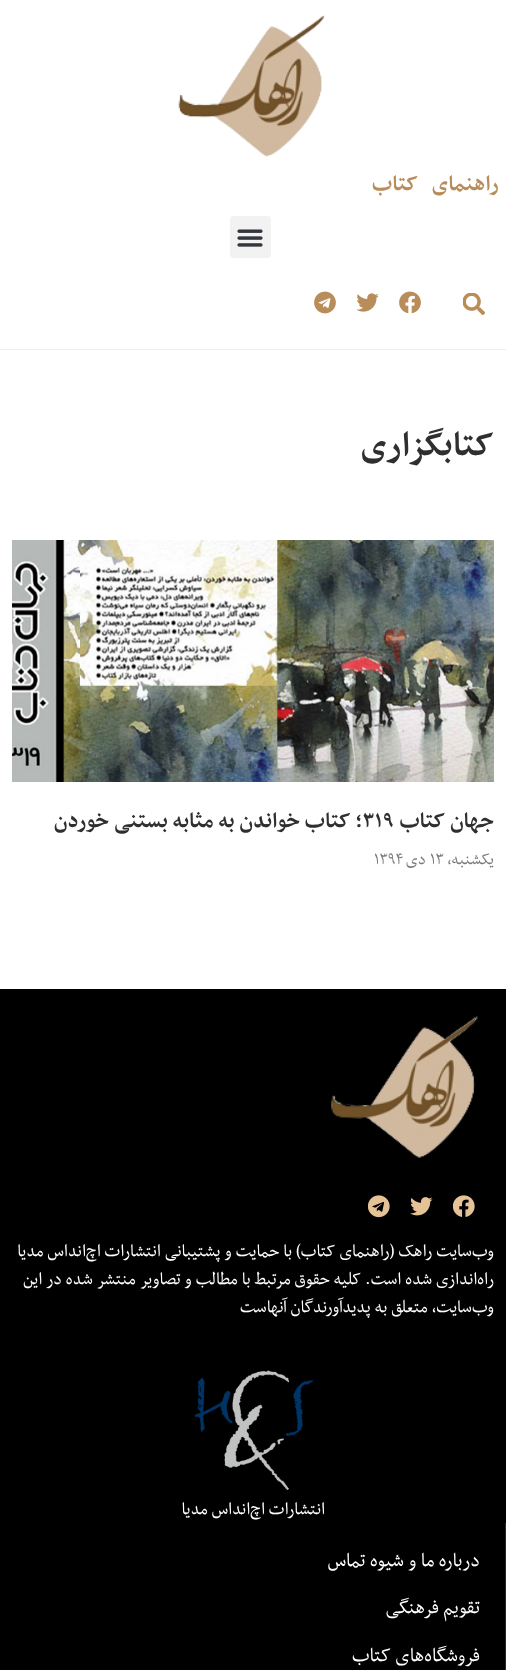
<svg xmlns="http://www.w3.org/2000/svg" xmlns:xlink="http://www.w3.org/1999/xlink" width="506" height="1670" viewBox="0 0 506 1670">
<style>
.cls-1{font:bold 25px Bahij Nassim;letter-spacing:-0.75px;direction:rtl;fill:#b88d59}
.cls-2{font:bold 40px Bahij Nassim;direction:rtl;fill:#2f2f30}
.cls-3{font:bold 25px Bahij Nassim;direction:rtl;fill:#2f2f30}
.cls-4{font:bold 25px Bahij Nassim;fill:#2f2f30}
.cls-5{font:19px Bahij Nassim;direction:rtl;fill:#7a7a7a}
.cls-6{font:19px Bahij Nassim;fill:#7a7a7a}
.cls-7{font:20px Bahij Nassim;direction:rtl;fill:#ffffff}
.cls-8{font:22.5px Bahij Nassim;direction:rtl;fill:#ffffff}
</style>
<rect width="100%" height="100%" fill="#ffffff"/>
<rect fill="#efefef" x="0" y="349" width="506" height="1"/>
<image xlink:href="image0.png" x="178" y="15" width="147" height="142"/>
<rect fill="#f2f2f2" x="230" y="216" width="41" height="42" rx="4"/>
<image xlink:href="image1.png" x="237" y="229" width="26" height="18"/>
<image xlink:href="image2.png" x="463" y="293" width="22" height="22"/>
<image xlink:href="image3.png" x="399" y="291" width="22" height="23"/>
<image xlink:href="image4.png" x="356" y="293" width="23" height="19"/>
<image xlink:href="image5.png" x="314" y="291" width="22" height="23"/>
<image xlink:href="image6.png" x="12" y="540" width="482" height="242"/>
<rect fill="#000000" x="0" y="989" width="506" height="681"/>
<image xlink:href="image7.png" x="331" y="1016" width="147" height="142"/>
<image xlink:href="image8.png" x="453" y="1195" width="22" height="22"/>
<image xlink:href="image9.png" x="410" y="1197" width="23" height="19"/>
<image xlink:href="image10.png" x="368" y="1195" width="22" height="23"/>
<image xlink:href="image11.png" x="194" y="1370" width="120" height="120"/>
<rect fill="#2b2b2b" x="505" y="1523" width="1" height="147"/>
<text class="cls-1" x="499" y="190" word-spacing="9">راهنمای کتاب</text>
<text class="cls-2" x="494" y="455">کتابگزاری</text>
<text class="cls-3" x="494" y="827">جهان کتاب</text>
<text class="cls-4" x="362" y="827">۳۱۹</text>
<text class="cls-3" x="362" y="827">؛ کتاب خواندن به مثابه بستنی خوردن</text>
<text class="cls-5" x="494" y="864">یکشنبه،</text>
<text class="cls-6" x="430" y="864">۱۳</text>
<text class="cls-5" x="426" y="864">دی</text>
<text class="cls-6" x="374" y="864">۱۳۹۴</text>
<text class="cls-7"><tspan x="494" y="1256">وب‌سایت راهک (راهنمای کتاب) با حمایت و پشتیبانی انتشارات اچ‌اند‌اس مدیا</tspan><tspan x="494" y="1284">راه‌اندازی شده است. کلیه حقوق مرتبط با مطالب و تصاویر منتشر شده در این</tspan><tspan x="494" y="1312">وب‌سایت، متعلق به پدیدآورندگان آنهاست</tspan></text>
<text class="cls-7" x="325" y="1514">انتشارات اچ‌اند‌اس مدیا</text>
<text class="cls-8" x="480" y="1566">درباره ما و شیوه تماس</text>
<text class="cls-8" x="480" y="1613">تقویم فرهنگی</text>
<text class="cls-8" x="480" y="1661">فروشگاه‌های کتاب</text>
</svg>
